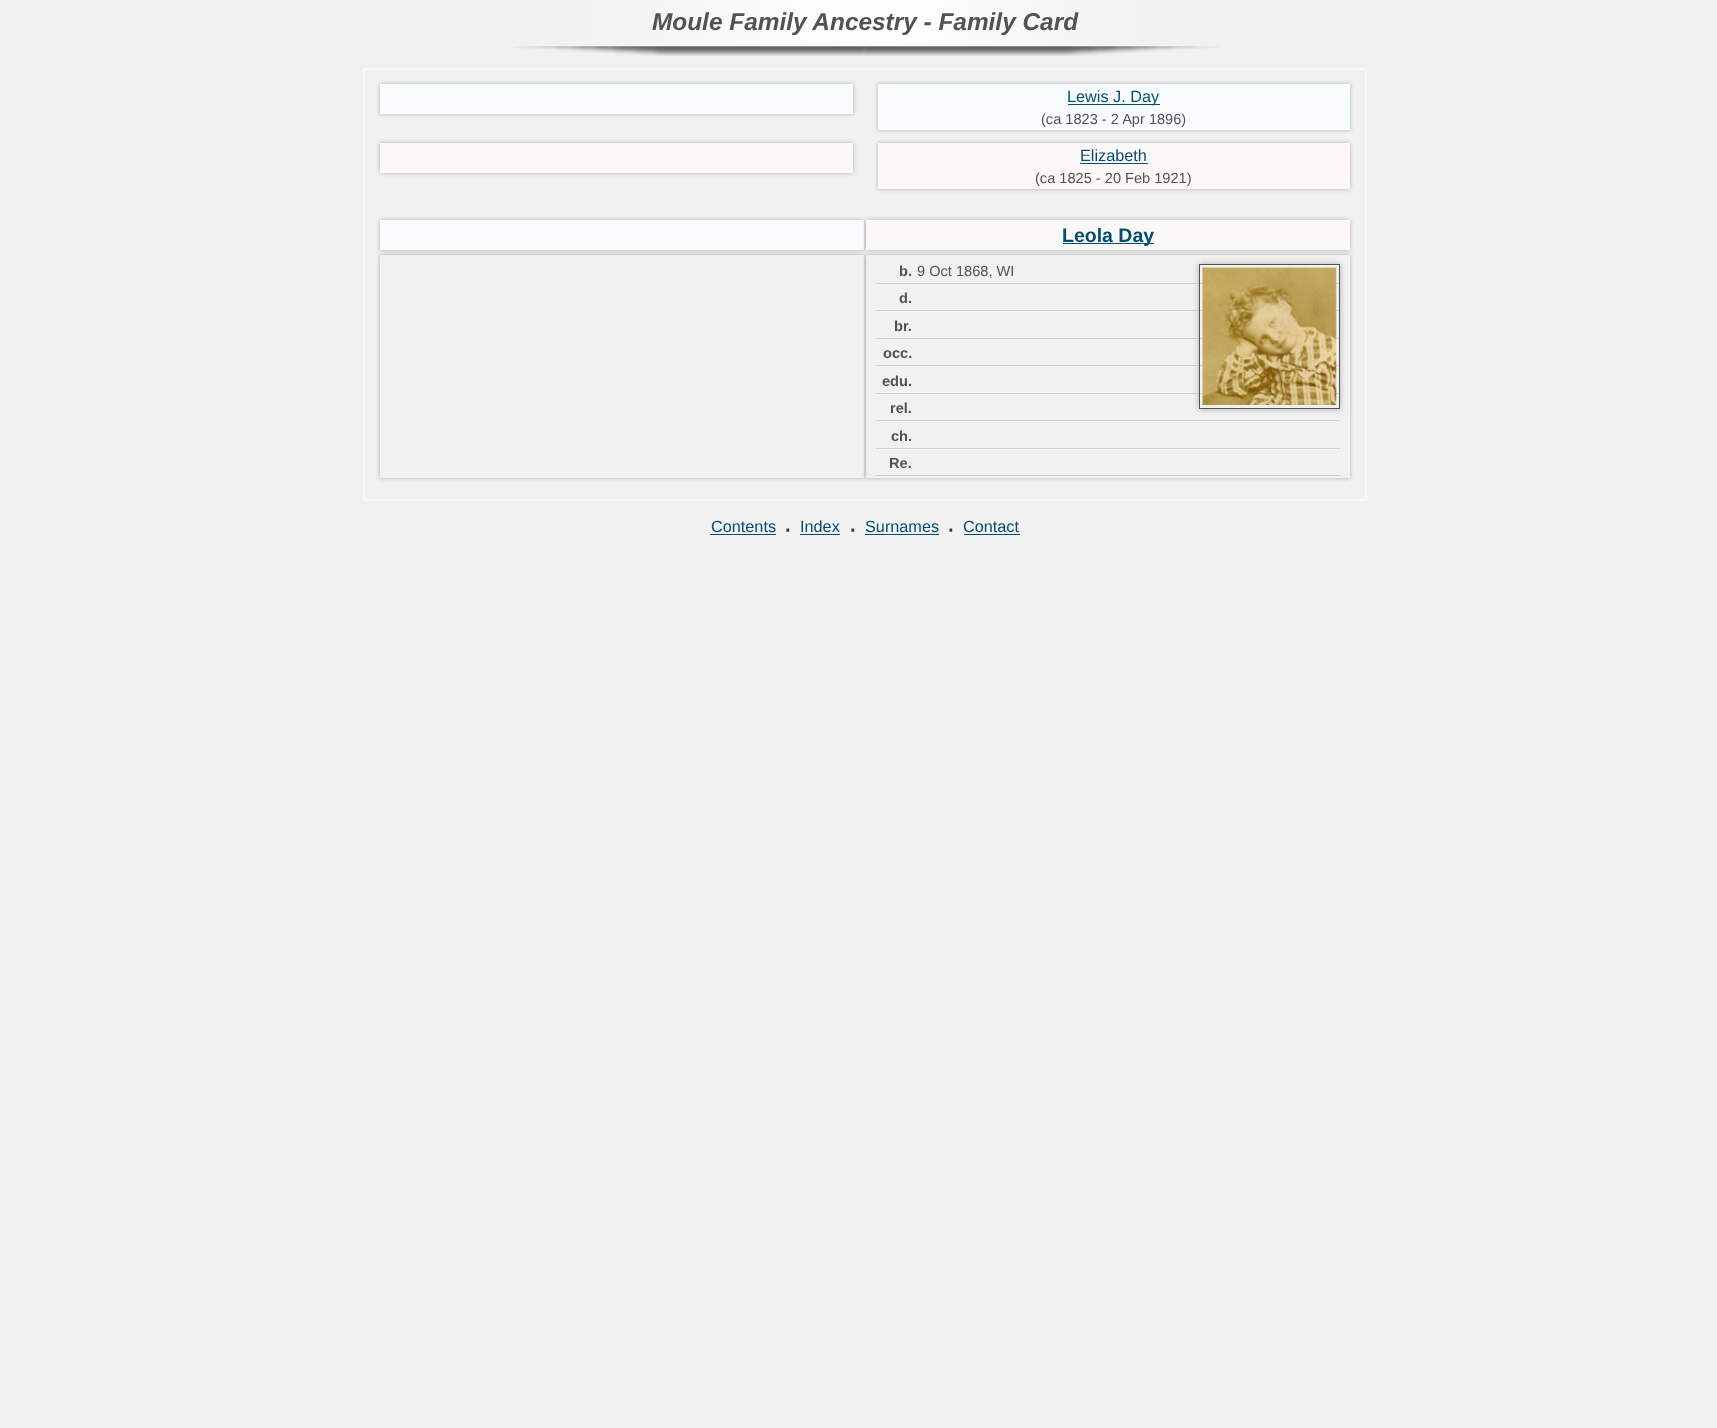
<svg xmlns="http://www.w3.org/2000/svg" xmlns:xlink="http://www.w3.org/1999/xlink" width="1717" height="1428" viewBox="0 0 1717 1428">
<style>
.cls-1{font:italic bold 24.4px Liberation Sans;fill:#525252}
.cls-2{font:16.25px Liberation Sans;fill:#014e71}
.cls-3{font:14.6px Liberation Sans;fill:#525252}
.cls-4{font:bold 19.5px Liberation Sans;fill:#014e71}
.cls-5{font:bold 14.6px Liberation Sans;fill:#525252}
.cls-6{font:29px Liberation Sans;fill:#4d3300}
</style>
<defs>
<clipPath id="clip1"><path d="M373 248H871V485H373ZM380 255H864V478H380Z" clip-rule="evenodd"/></clipPath>
<clipPath id="clip2"><path d="M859 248H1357V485H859ZM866 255H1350V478H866Z" clip-rule="evenodd"/></clipPath>
<clipPath id="clip3"><path d="M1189 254H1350V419H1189ZM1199 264H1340V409H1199Z" clip-rule="evenodd"/></clipPath>
</defs>
<rect width="100%" height="100%" fill="#f1f1f1"/>
<image xlink:href="image0.png" x="512" y="0" width="707" height="56"/>
<rect fill="#ffffff" filter="blur(1px)" x="364" y="69" width="1002" height="431"/>
<rect fill="#f1f1f1" x="365" y="70" width="1000" height="429"/>
<rect fill="#aeaeae" filter="blur(2px)" x="380" y="84" width="473" height="30"/>
<rect fill="#f8fcfd" x="380" y="84" width="473" height="30"/>
<rect fill="#aeaeae" filter="blur(2px)" x="878" y="84" width="472" height="46"/>
<rect fill="#f8fcfd" x="878" y="84" width="472" height="46"/>
<rect fill="#014e71" x="1068" y="104" width="92" height="1"/>
<rect fill="#aeaeae" filter="blur(2px)" x="380" y="143" width="473" height="30"/>
<rect fill="#fdf8f8" x="380" y="143" width="473" height="30"/>
<rect fill="#aeaeae" filter="blur(2px)" x="878" y="143" width="472" height="46"/>
<rect fill="#fdf8f8" x="878" y="143" width="472" height="46"/>
<rect fill="#014e71" x="1080" y="163" width="68" height="1"/>
<rect fill="#aeaeae" filter="blur(2px)" x="380" y="220" width="484" height="30"/>
<rect fill="#f8fcfd" x="380" y="220" width="484" height="30"/>
<rect fill="#aeaeae" filter="blur(2px)" x="866" y="220" width="484" height="30"/>
<rect fill="#fdf8f8" x="866" y="220" width="484" height="30"/>
<rect fill="#014e71" x="1063" y="243" width="91" height="1"/>
<g clip-path="url(#clip1)">
<rect fill="#aeaeae" filter="blur(2px)" x="380" y="255" width="484" height="223"/>
</g>
<g clip-path="url(#clip2)">
<rect fill="#aeaeae" filter="blur(2px)" x="866" y="255" width="484" height="223"/>
</g>
<rect fill="#d0d0d0" x="876" y="283" width="464" height="1"/>
<rect fill="#d0d0d0" x="876" y="310" width="464" height="1"/>
<rect fill="#d0d0d0" x="876" y="338" width="464" height="1"/>
<rect fill="#d0d0d0" x="876" y="365" width="464" height="1"/>
<rect fill="#d0d0d0" x="876" y="393" width="464" height="1"/>
<g clip-path="url(#clip3)">
<rect fill="#aeaeae" filter="blur(3px)" x="1199" y="264" width="141" height="145"/>
</g>
<rect fill="none" stroke="#525252" x="1199.5" y="264.5" width="140" height="144"/>
<image xlink:href="image1.png" x="1202" y="267" width="135" height="138"/>
<rect fill="#d0d0d0" x="876" y="420" width="464" height="1"/>
<rect fill="#d0d0d0" x="876" y="448" width="464" height="1"/>
<rect fill="#d0d0d0" x="876" y="475" width="464" height="1"/>
<rect fill="#014e71" x="710" y="534" width="66" height="1"/>
<rect fill="#014e71" x="800" y="534" width="40" height="1"/>
<rect fill="#014e71" x="865" y="534" width="74" height="1"/>
<rect fill="#014e71" x="964" y="534" width="56" height="1"/>
<text class="cls-1" x="652" y="30">Moule Family Ancestry - Family Card</text>
<text class="cls-2" x="1067" y="102">Lewis J. Day</text>
<text class="cls-3" x="1041" y="124">(ca 1823 - 2 Apr 1896)</text>
<text class="cls-2" x="1080" y="161">Elizabeth</text>
<text class="cls-3" x="1035" y="183">(ca 1825 - 20 Feb 1921)</text>
<text class="cls-4" x="1062" y="242">Leola Day</text>
<text class="cls-5" x="899" y="276">b.</text>
<text class="cls-3" x="917" y="276">9 Oct 1868, WI</text>
<text class="cls-5" x="899" y="303">d.</text>
<text class="cls-5" x="894" y="331">br.</text>
<text class="cls-5" x="883" y="358">occ.</text>
<text class="cls-5" x="882" y="386">edu.</text>
<text class="cls-5" x="890" y="413">rel.</text>
<text class="cls-5" x="891" y="441">ch.</text>
<text class="cls-5" x="889" y="468">Re.</text>
<text class="cls-2" x="711" y="532">Contents</text>
<text class="cls-6" x="783" y="538">·</text>
<text class="cls-2" x="800" y="532">Index</text>
<text class="cls-6" x="848" y="538">·</text>
<text class="cls-2" x="865" y="532">Surnames</text>
<text class="cls-6" x="946" y="538">·</text>
<text class="cls-2" x="963" y="532">Contact</text>
</svg>
